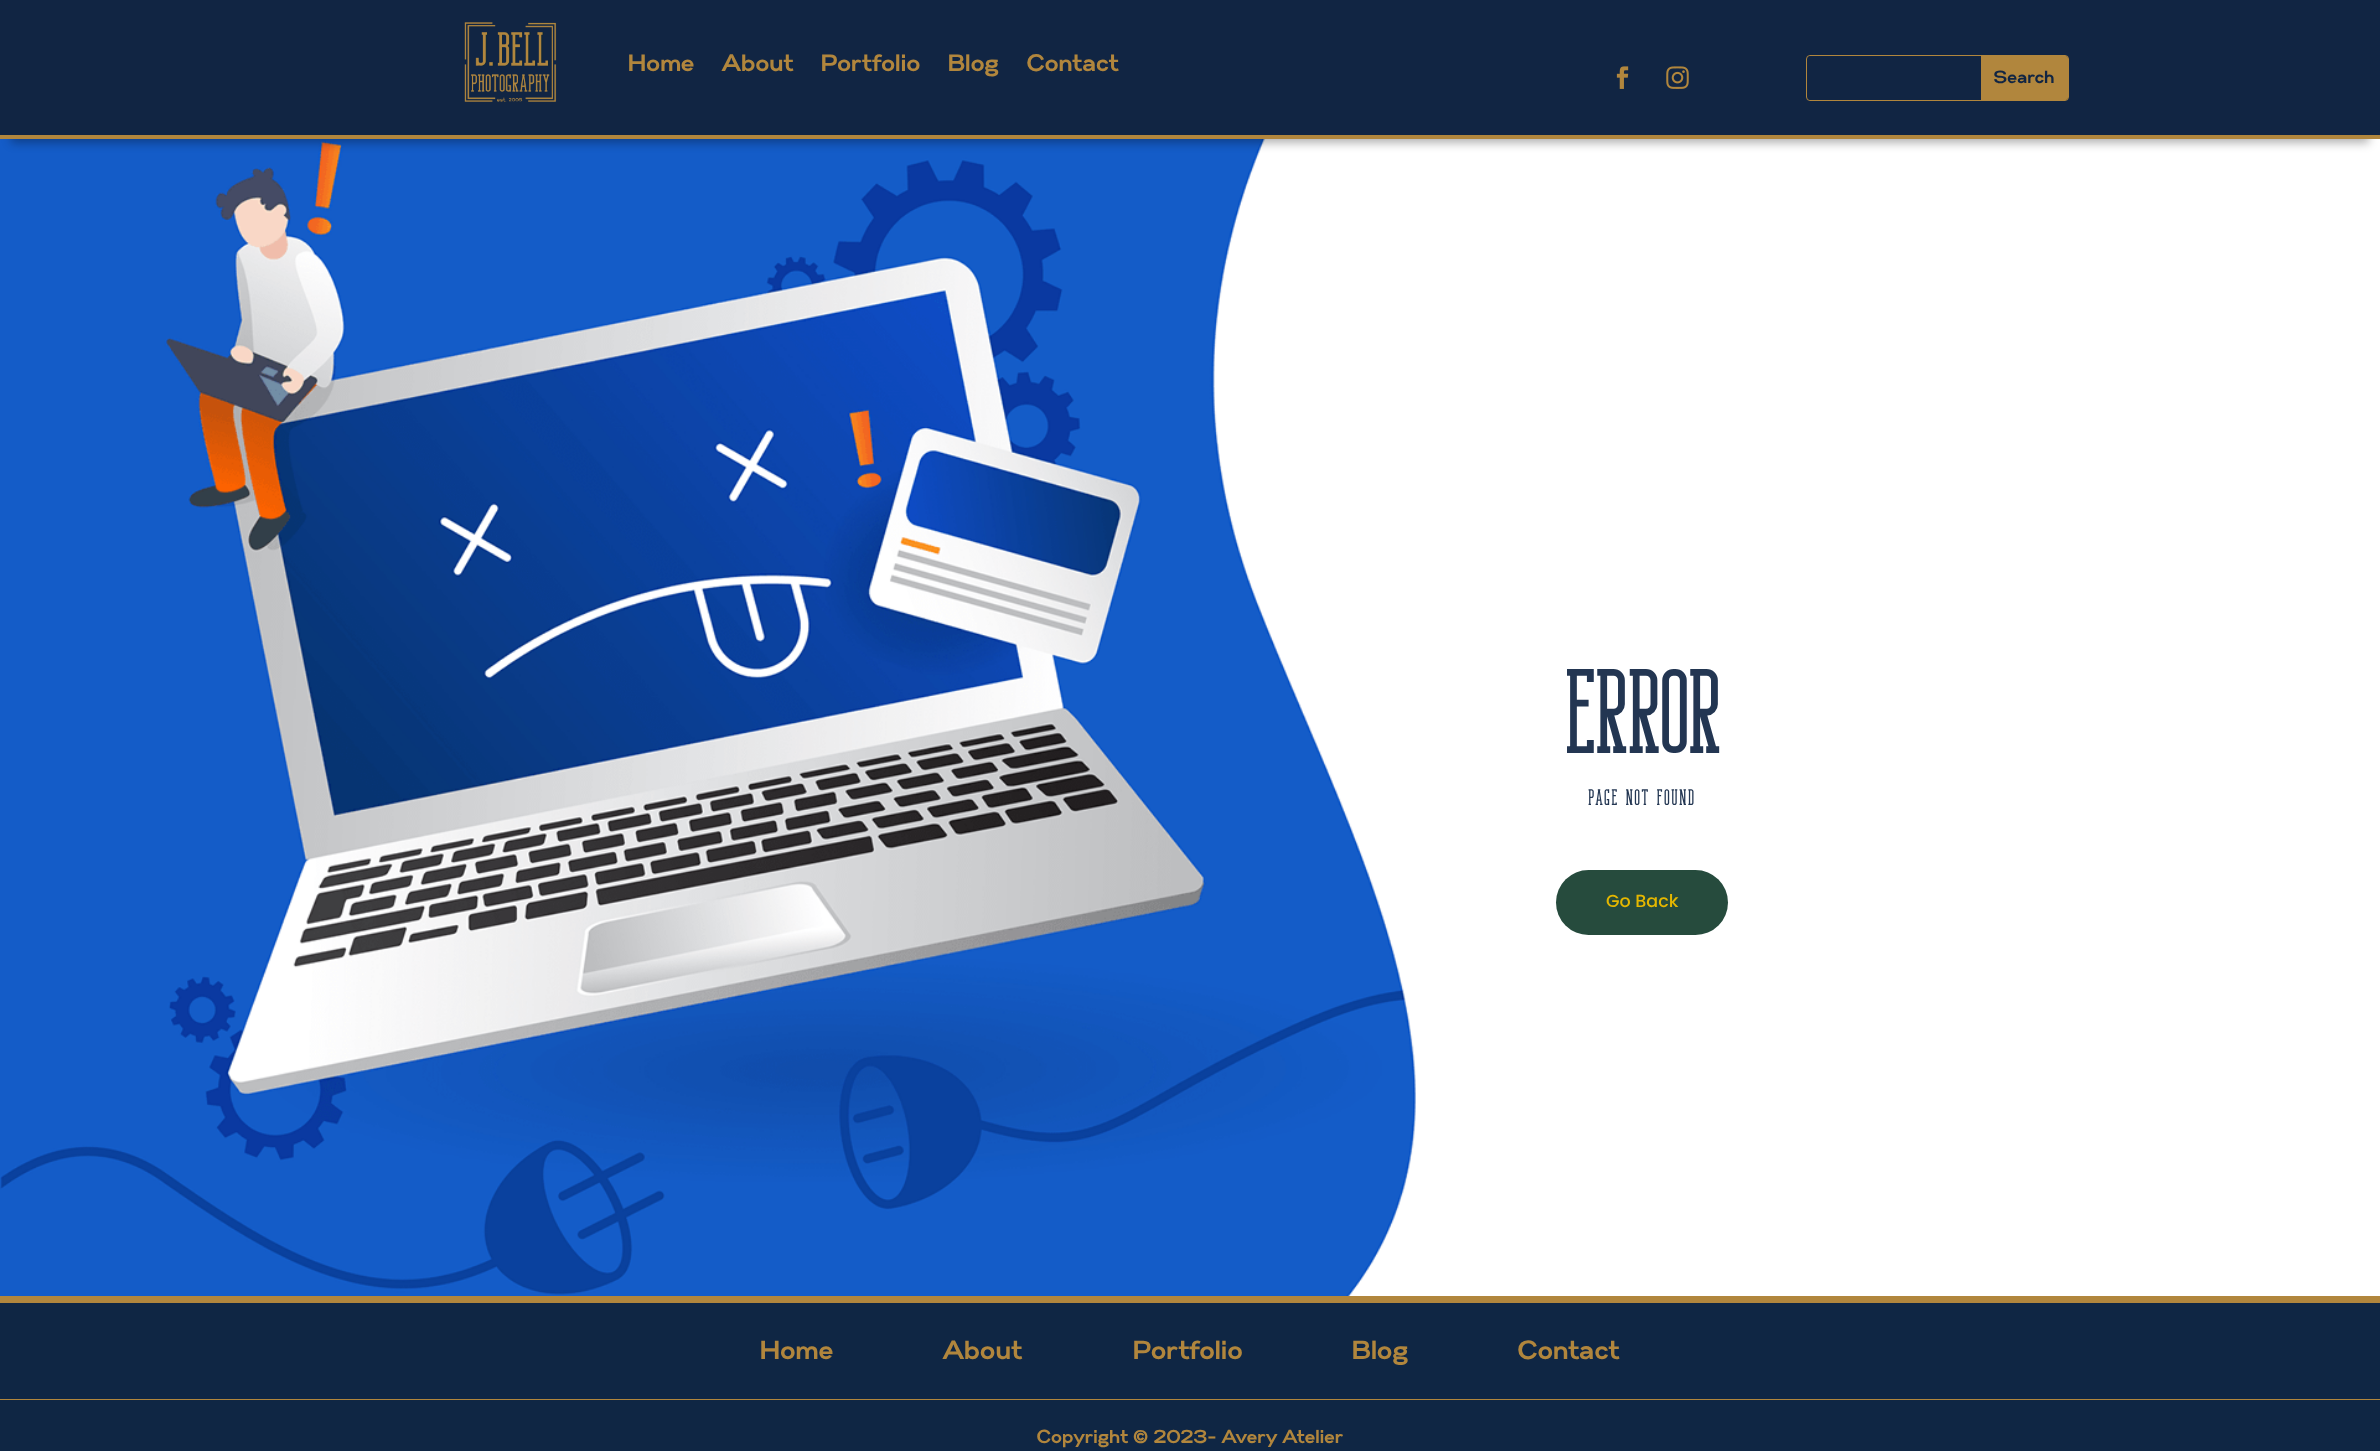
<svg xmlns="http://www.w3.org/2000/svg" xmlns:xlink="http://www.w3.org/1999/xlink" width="2380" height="1451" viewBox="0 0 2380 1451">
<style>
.cls-1{font:bold 23.75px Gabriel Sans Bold;fill:#b1863d}
.cls-2{font:bold 17.5px Gabriel Sans Bold;fill:#112543}
.cls-3{font:120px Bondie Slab;letter-spacing:-2.5px;fill:#233652}
.cls-4{font:22.5px Bondie Slab;letter-spacing:1.25px;fill:#233652}
.cls-5{font:500 17.5px Poppins;fill:#e5b700}
.cls-6{font:bold 26.25px Gabriel Sans Bold;fill:#b1863d}
.cls-7{font:bold 18.75px Gabriel Sans Bold;fill:#b1863d}
</style>
<rect width="100%" height="100%" fill="#ffffff"/>
<image xlink:href="image3.png" x="0" y="139" width="2380" height="1157"/>
<rect fill="#000000" fill-opacity="0.3" filter="blur(5px)" x="11" y="26" width="2358" height="117"/>
<rect fill="#112543" x="0" y="0" width="2380" height="135"/>
<rect fill="#b1863d" x="0" y="135" width="2380" height="4"/>
<image xlink:href="image0.png" x="464" y="22" width="93" height="80"/>
<image xlink:href="image1.png" x="1616" y="66" width="13" height="23"/>
<image xlink:href="image2.png" x="1666" y="66" width="23" height="23"/>
<rect fill="none" stroke="#b1863d" x="1806.5" y="55.5" width="262" height="45" rx="3.5"/>
<path fill="#112543" d="M1810.5 56H1981V100H1810.5C1809 100 1808 99 1808 97.5V58.5C1808 57 1809 56 1810.5 56Z"/>
<path fill="#b1863d" d="M1981 56H2065.5C2067 56 2068 57 2068 58.5V97.5C2068 99 2067 100 2065.5 100H1981Z"/>
<rect fill="#264b3d" x="1556" y="870" width="172" height="65" rx="32.5"/>
<rect fill="#0f2644" x="0" y="1303" width="2380" height="148"/>
<rect fill="#b1863d" x="0" y="1296" width="2380" height="7"/>
<rect fill="#b1863d" x="0" y="1399" width="2380" height="1"/>
<text class="cls-1" x="628" y="71">Home</text>
<text class="cls-1" x="722" y="71">About</text>
<text class="cls-1" x="821" y="71">Portfolio</text>
<text class="cls-1" x="948" y="71">Blog</text>
<text class="cls-1" x="1027" y="71">Contact</text>
<text class="cls-2" x="1994" y="83">Search</text>
<text class="cls-3" x="1564" y="753">ERROR</text>
<text class="cls-4" x="1588" y="805">Page not found</text>
<text class="cls-5" x="1606" y="907">Go Back</text>
<text class="cls-6" x="760" y="1359">Home</text>
<text class="cls-6" x="943" y="1359">About</text>
<text class="cls-6" x="1133" y="1359">Portfolio</text>
<text class="cls-6" x="1352" y="1359">Blog</text>
<text class="cls-6" x="1518" y="1359">Contact</text>
<text class="cls-7" x="1037" y="1443">Copyright © 2023- Avery Atelier</text>
</svg>
